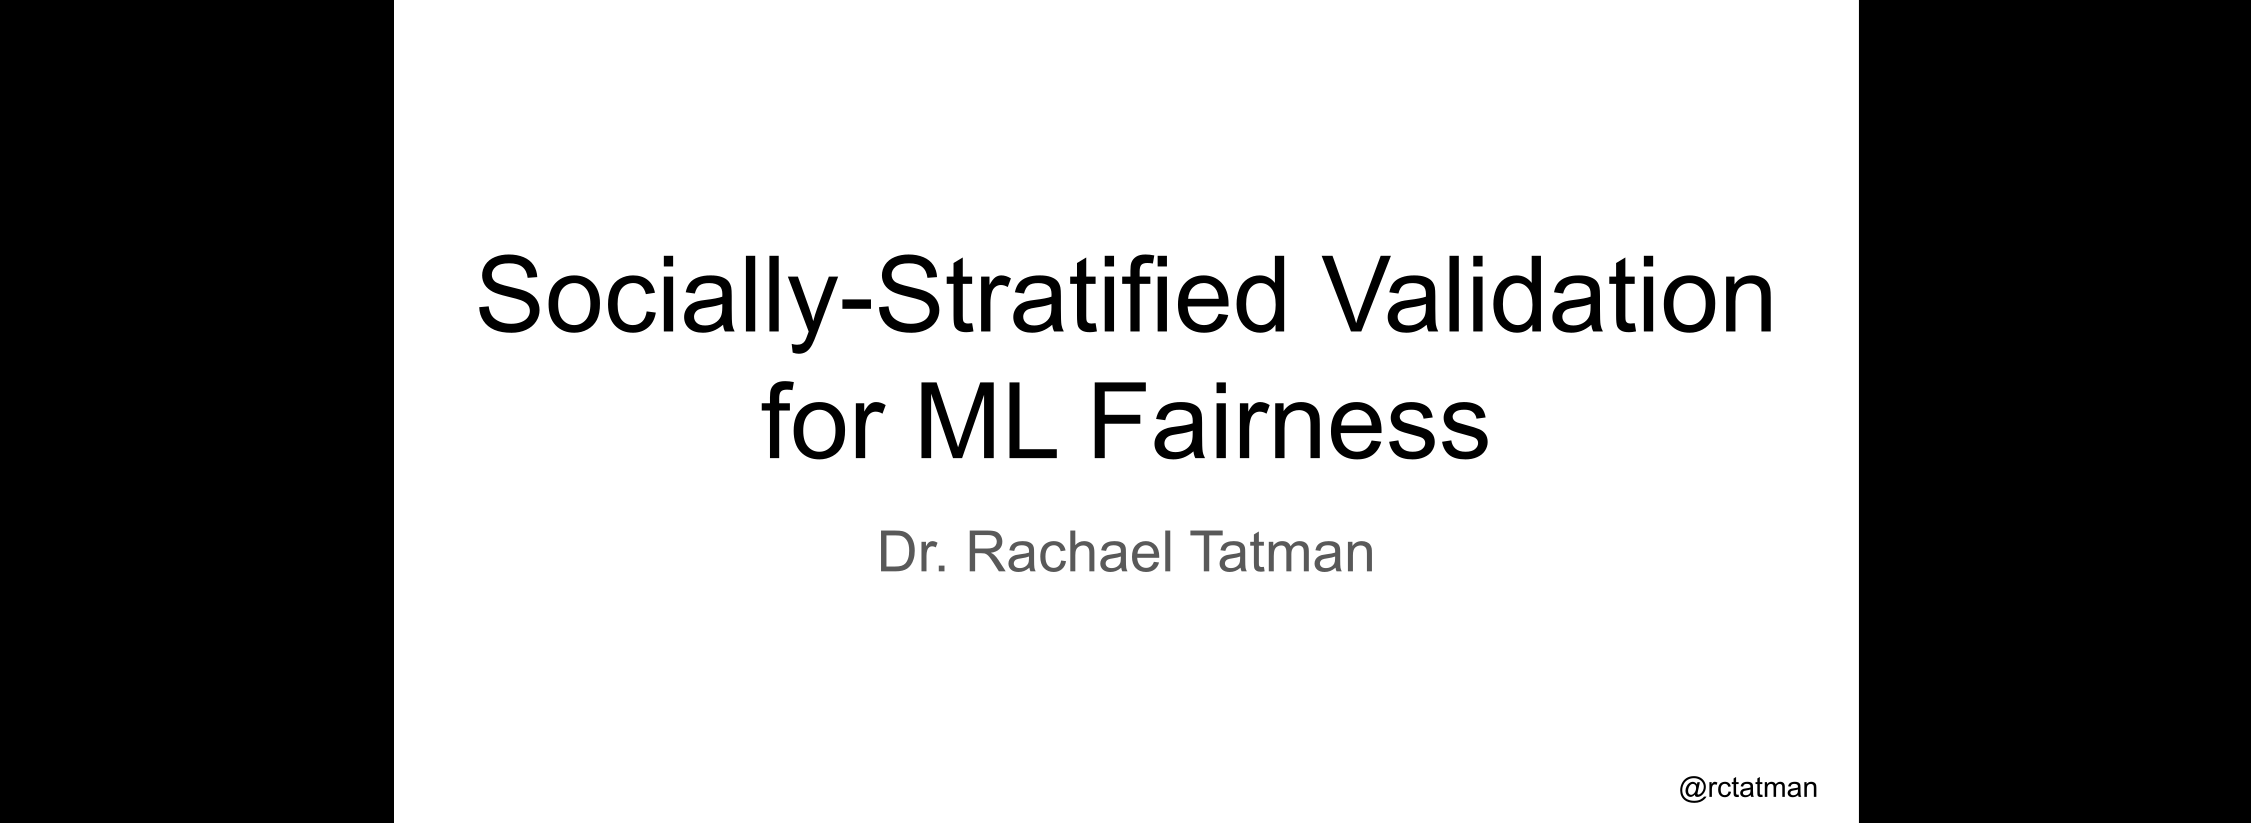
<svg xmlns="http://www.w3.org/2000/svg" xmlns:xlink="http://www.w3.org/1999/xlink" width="2251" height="823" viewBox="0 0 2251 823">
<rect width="100%" height="100%" fill="#000000"/>
<image xlink:href="image0.png" x="394" y="0" width="1465" height="823"/>
</svg>
